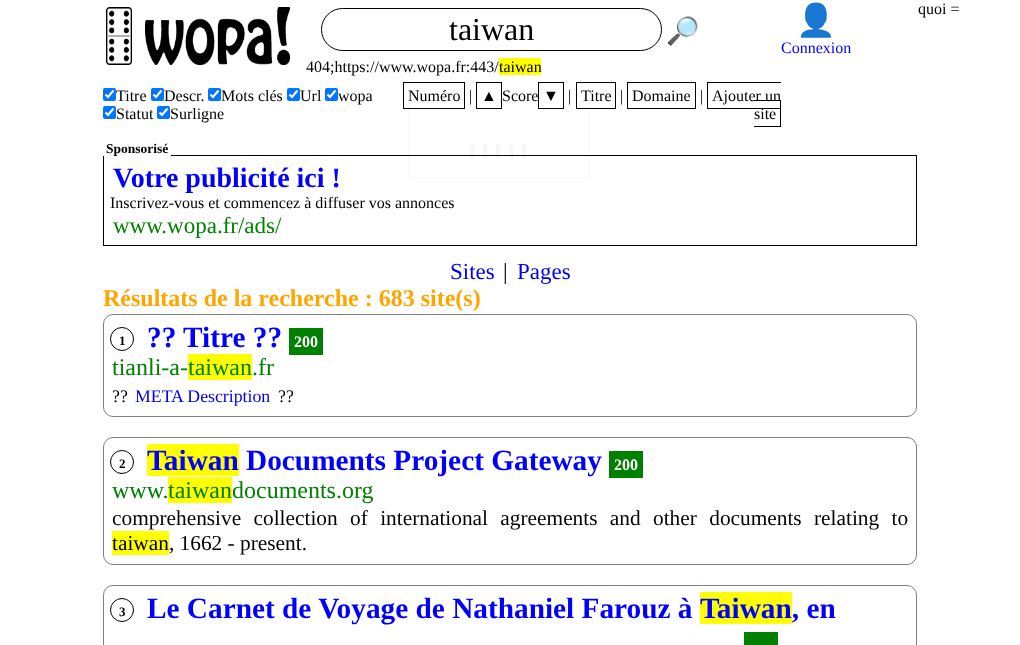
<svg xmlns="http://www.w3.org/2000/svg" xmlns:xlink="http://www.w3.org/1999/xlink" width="1020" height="645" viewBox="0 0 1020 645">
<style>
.cls-1{font:32px Liberation Serif;fill:#000000}
.cls-2{font:27px Noto Color Emoji;fill:#000000}
.cls-3{font:32px Noto Color Emoji;fill:#0000ff}
.cls-4{font:16px Liberation Serif;fill:#0000ff}
.cls-5{font:16px Liberation Serif;fill:#000000}
.cls-6{font:bold 13.5px Liberation Serif;fill:#000000}
.cls-7{font:bold 28px Liberation Serif;fill:#0000ff}
.cls-8{font:23px Liberation Serif;fill:#008000}
.cls-9{font:23px Liberation Serif;fill:#0000ee}
.cls-10{font:23px Liberation Serif;fill:#000000}
.cls-11{font:bold 24px Liberation Serif;fill:#ffa500}
.cls-12{font:bold 13px Liberation Serif;fill:#000000}
.cls-13{font:bold 29.3px Liberation Serif;fill:#0000ff}
.cls-14{font:bold 16px Liberation Serif;fill:#ffffff}
.cls-15{font:24px Liberation Serif;fill:#008000}
.cls-16{font:17.75px Liberation Serif;fill:#000000}
.cls-17{font:17.75px Liberation Serif;fill:#0000ee}
.cls-18{font:21.35px Liberation Serif;fill:#000000}
</style>
<rect width="100%" height="100%" fill="#ffffff"/>
<image xlink:href="image0.png" x="106" y="7" width="26" height="58"/>
<image xlink:href="image1.png" x="145" y="7" width="145" height="58"/>
<rect fill="none" stroke="#000000" x="321.5" y="8.5" width="340" height="42" rx="21"/>
<rect fill="#ffff00" x="499" y="58" width="42" height="17"/>
<rect fill="#0075ff" x="103" y="88" width="13" height="13" rx="2"/>
<path fill="none" stroke="#ffffff" stroke-width="2.1" d="M105.5 94.5L108 97L113.5 90.5"/>
<rect fill="#0075ff" x="151" y="88" width="13" height="13" rx="2"/>
<path fill="none" stroke="#ffffff" stroke-width="2.1" d="M153.5 94.5L156 97L161.5 90.5"/>
<rect fill="#0075ff" x="208" y="88" width="13" height="13" rx="2"/>
<path fill="none" stroke="#ffffff" stroke-width="2.1" d="M210.5 94.5L213 97L218.5 90.5"/>
<rect fill="#0075ff" x="287" y="88" width="13" height="13" rx="2"/>
<path fill="none" stroke="#ffffff" stroke-width="2.1" d="M289.5 94.5L292 97L297.5 90.5"/>
<rect fill="#0075ff" x="325" y="88" width="13" height="13" rx="2"/>
<path fill="none" stroke="#ffffff" stroke-width="2.1" d="M327.5 94.5L330 97L335.5 90.5"/>
<rect fill="#0075ff" x="103" y="106" width="13" height="13" rx="2"/>
<path fill="none" stroke="#ffffff" stroke-width="2.1" d="M105.5 112.5L108 115L113.5 108.5"/>
<rect fill="#0075ff" x="157" y="106" width="13" height="13" rx="2"/>
<path fill="none" stroke="#ffffff" stroke-width="2.1" d="M159.5 112.5L162 115L167.5 108.5"/>
<rect fill="none" stroke="#000000" x="403.5" y="82.5" width="61" height="26"/>
<rect fill="none" stroke="#000000" x="476.5" y="82.5" width="25" height="26"/>
<rect fill="none" stroke="#000000" x="538.5" y="82.5" width="25" height="26"/>
<rect fill="none" stroke="#000000" x="576.5" y="82.5" width="39" height="26"/>
<rect fill="none" stroke="#000000" x="627.5" y="82.5" width="68" height="26"/>
<rect fill="#000000" x="707" y="82" width="74" height="1"/>
<rect fill="#000000" x="707" y="108" width="74" height="1"/>
<rect fill="#000000" x="707" y="82" width="1" height="27"/>
<rect fill="#000000" x="754" y="100" width="27" height="1"/>
<rect fill="#000000" x="780" y="100" width="1" height="27"/>
<rect fill="#000000" x="754" y="126" width="27" height="1"/>
<rect fill="none" stroke="#000000" x="103.5" y="155.5" width="813" height="90"/>
<rect fill="#ffffff" fill-opacity="0.03" x="408" y="102" width="182" height="54"/>
<rect fill="#ffffff" x="103" y="155" width="68" height="1"/>
<rect fill="none" stroke="#808080" x="103.5" y="314.5" width="813" height="102" rx="9.5"/>
<circle fill="none" stroke="#000000" cx="122" cy="339" r="11.5"/>
<rect fill="#008000" x="289" y="328" width="34" height="27"/>
<rect fill="#ffff00" x="188" y="354" width="64" height="26"/>
<rect fill="none" stroke="#808080" x="103.5" y="437.5" width="813" height="127" rx="9.5"/>
<circle fill="none" stroke="#000000" cx="122" cy="462" r="11.5"/>
<rect fill="#ffff00" x="147" y="444" width="92" height="32"/>
<rect fill="#008000" x="609" y="451" width="34" height="27"/>
<rect fill="#ffff00" x="168" y="477" width="64" height="26"/>
<rect fill="#ffff00" x="112" y="531" width="57" height="24"/>
<rect fill="none" stroke="#808080" x="103.5" y="585.5" width="813" height="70" rx="9.5"/>
<circle fill="none" stroke="#000000" cx="122" cy="610" r="11.5"/>
<rect fill="#ffff00" x="700" y="592" width="92" height="32"/>
<rect fill="#008000" x="744" y="632" width="34" height="13"/>
<text class="cls-1" x="449" y="40">taiwan</text>
<text class="cls-2" x="666" y="40">🔎</text>
<text class="cls-3" x="796" y="31">👤</text>
<text class="cls-4" x="781" y="53">Connexion</text>
<text class="cls-5" x="918" y="14">quoi =</text>
<text class="cls-5" x="306" y="72">404;https://www.wopa.fr:443/</text>
<text class="cls-5" x="499" y="72">taiwan</text>
<text class="cls-5" x="116" y="101">Titre</text>
<text class="cls-5" x="164" y="101">Descr.</text>
<text class="cls-5" x="221" y="101">Mots clés</text>
<text class="cls-5" x="300" y="101">Url</text>
<text class="cls-5" x="338" y="101">wopa</text>
<text class="cls-5" x="116" y="119">Statut</text>
<text class="cls-5" x="170" y="119">Surligne</text>
<text class="cls-5" x="408" y="101">Numéro</text>
<text class="cls-5" x="469" y="101">|</text>
<text class="cls-5" x="481" y="101">▲</text>
<text class="cls-5" x="502" y="101">Score</text>
<text class="cls-5" x="543" y="101">▼</text>
<text class="cls-5" x="568" y="101">|</text>
<text class="cls-5" x="581" y="101">Titre</text>
<text class="cls-5" x="620" y="101">|</text>
<text class="cls-5" x="632" y="101">Domaine</text>
<text class="cls-5" x="700" y="101">|</text>
<text class="cls-5" x="712" y="101">Ajouter un</text>
<text class="cls-5" x="754" y="119">site</text>
<rect fill="none" stroke="#000000" stroke-opacity="0.03" x="408.5" y="102.5" width="181" height="76"/>
<path fill="#000000" fill-opacity="0.03" d="M472 144C475 144 474 147.5 474 149.5V153.5C474 154 475 158 473 158C470.5 158 470 158 470 155V151.5C470 150 469 144 472 144Z"/>
<rect fill="#669900" fill-opacity="0.03" x="474" y="145" width="1" height="13"/>
<rect fill="#fafcf7" x="471" y="158" width="3" height="1"/>
<path fill="#000000" fill-opacity="0.03" d="M485 144C488 144 487 147.5 487 149.5V153.5C487 154 488 158 486 158C483.5 158 483 158 483 155V151.5C483 150 482 144 485 144Z"/>
<rect fill="#669900" fill-opacity="0.03" x="487" y="145" width="1" height="13"/>
<rect fill="#fafcf7" x="484" y="158" width="3" height="1"/>
<path fill="#000000" fill-opacity="0.03" d="M498 144C501 144 500 147.5 500 149.5V153.5C500 154 501 158 499 158C496.5 158 496 158 496 155V151.5C496 150 495 144 498 144Z"/>
<rect fill="#669900" fill-opacity="0.03" x="500" y="145" width="1" height="13"/>
<rect fill="#fafcf7" x="497" y="158" width="3" height="1"/>
<path fill="#000000" fill-opacity="0.03" d="M511 144C514 144 513 147.5 513 149.5V153.5C513 154 514 158 512 158C509.5 158 509 158 509 155V151.5C509 150 508 144 511 144Z"/>
<rect fill="#669900" fill-opacity="0.03" x="513" y="145" width="1" height="13"/>
<rect fill="#fafcf7" x="510" y="158" width="3" height="1"/>
<path fill="#000000" fill-opacity="0.03" d="M524 144C527 144 526 147.5 526 149.5V153.5C526 154 527 158 525 158C522.5 158 522 158 522 155V151.5C522 150 521 144 524 144Z"/>
<rect fill="#669900" fill-opacity="0.03" x="526" y="145" width="1" height="13"/>
<rect fill="#fafcf7" x="523" y="158" width="3" height="1"/>
<text class="cls-6" x="106" y="153">Sponsorisé</text>
<text class="cls-7" x="113" y="187">Votre publicité ici !</text>
<text class="cls-5" x="110" y="208">Inscrivez-vous et commencez à diffuser vos annonces</text>
<text class="cls-8" x="113" y="233">www.wopa.fr/ads/</text>
<text class="cls-9" x="450" y="279">Sites</text>
<text class="cls-10" x="503" y="279">|</text>
<text class="cls-9" x="517" y="279">Pages</text>
<text class="cls-11" x="103" y="306">Résultats de la recherche : 683 site(s)</text>
<text class="cls-12" x="119" y="345">1</text>
<text class="cls-13" x="147" y="347">?? Titre ??</text>
<text class="cls-14" x="294" y="347">200</text>
<text class="cls-15" x="112" y="375">tianli-a-</text>
<text class="cls-15" x="188" y="375">taiwan.fr</text>
<text class="cls-16" x="112" y="402">??</text>
<text class="cls-17" x="135" y="402">META Description</text>
<text class="cls-16" x="278" y="402">??</text>
<text class="cls-12" x="119" y="468">2</text>
<text class="cls-13" x="147" y="470">Taiwan Documents Project Gateway</text>
<text class="cls-14" x="614" y="470">200</text>
<text class="cls-15" x="112" y="498">www.</text>
<text class="cls-15" x="168" y="498">taiwandocuments.org</text>
<text class="cls-18"><tspan x="112" y="525" word-spacing="7">comprehensive collection of international agreements and other documents relating to</tspan><tspan x="112" y="550">taiwan, 1662 - present.</tspan></text>
<text class="cls-12" x="119" y="616">3</text>
<text class="cls-13" x="147" y="618">Le Carnet de Voyage de Nathaniel Farouz à</text>
<text class="cls-13" x="700" y="618">Taiwan, en</text>
</svg>
